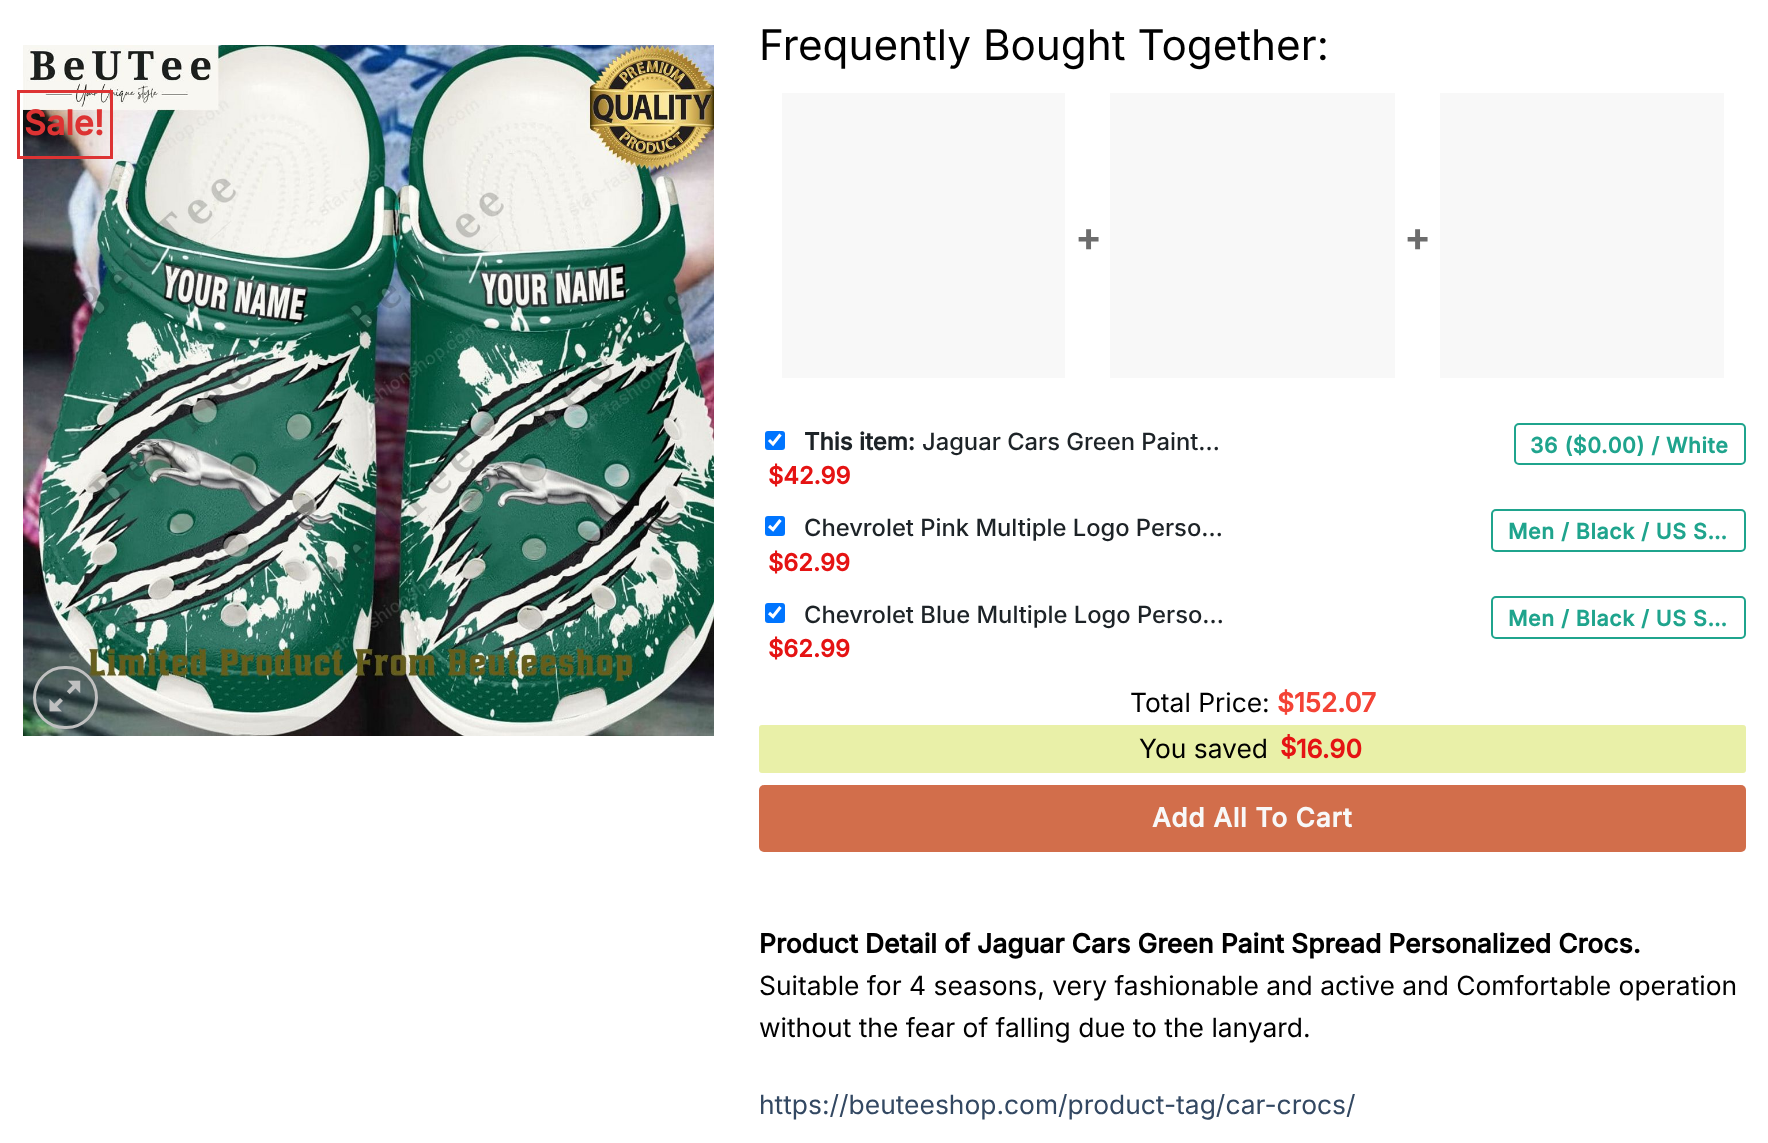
<svg xmlns="http://www.w3.org/2000/svg" xmlns:xlink="http://www.w3.org/1999/xlink" width="1768" height="1143" viewBox="0 0 1768 1143">
<style>
.cls-1{font:bold 34px Inter;fill:#dd3333}
.cls-2{font:42.25px Inter;fill:#000000}
.cls-3{font:bold 39px Inter;fill:#6d6d6d}
.cls-4{font:bold 23.75px Inter;fill:#1d2327}
.cls-5{font:500 23.75px Inter;fill:#1d2327}
.cls-6{font:bold 23.75px Inter;fill:#e51313}
.cls-7{font:bold 21.4px Inter;letter-spacing:0.6px;fill:#1fa48d}
.cls-8{font:26.4px Inter;fill:#000000}
.cls-9{font:bold 26.4px Inter;fill:#f44336}
.cls-10{font:bold 25.5px Inter;fill:#e51313}
.cls-11{font:bold 26.4px Inter;letter-spacing:0.75px;fill:#f8f8f8}
.cls-12{font:bold 26.4px Inter;fill:#000000}
.cls-13{font:26.4px Inter;fill:#334862}
</style>
<rect width="100%" height="100%" fill="#ffffff"/>
<image xlink:href="image0.png" x="23" y="45" width="691" height="691"/>
<rect fill="none" stroke="#dd3333" stroke-width="3" x="18.5" y="91.5" width="93" height="66"/>
<rect fill="none" stroke="#c0c0c0" stroke-width="3" x="34.5" y="667.5" width="62" height="60" rx="30"/>
<image xlink:href="image1.png" x="49" y="680" width="32" height="32"/>
<rect fill="#f8f8f8" x="782" y="93" width="283" height="285"/>
<rect fill="#f8f8f8" x="1110" y="93" width="285" height="285"/>
<rect fill="#f8f8f8" x="1440" y="93" width="284" height="285"/>
<rect fill="#0075ff" x="765" y="431" width="20" height="19" rx="3"/>
<path fill="none" stroke="#ffffff" stroke-width="3.1" d="M769 440L773 444L780.5 434.5"/>
<rect fill="none" stroke="#1fa48d" stroke-width="2" x="1515" y="424" width="230" height="40" rx="4"/>
<rect fill="#0075ff" x="765" y="516" width="20" height="20" rx="3"/>
<path fill="none" stroke="#ffffff" stroke-width="3.1" d="M769 526L773 529.5L780.5 520"/>
<rect fill="none" stroke="#1fa48d" stroke-width="2" x="1492" y="510" width="253" height="41" rx="4"/>
<rect fill="#0075ff" x="765" y="603" width="20" height="20" rx="3"/>
<path fill="none" stroke="#ffffff" stroke-width="3.1" d="M769 613L773 616.5L780.5 607"/>
<rect fill="none" stroke="#1fa48d" stroke-width="2" x="1492" y="597" width="253" height="41" rx="4"/>
<rect fill="#e9f0a8" x="759" y="725" width="987" height="48" rx="3"/>
<rect fill="#d26e4b" x="759" y="785" width="987" height="67" rx="5"/>
<text class="cls-1" x="24" y="135">Sale!</text>
<text class="cls-2" x="759" y="60">Frequently Bought Together:</text>
<text class="cls-3" x="1075" y="251">+</text>
<text class="cls-3" x="1404" y="251">+</text>
<text class="cls-4" x="804" y="450">This item:</text>
<text class="cls-5" x="922" y="450">Jaguar Cars Green Paint…</text>
<text class="cls-6" x="768" y="484">$42.99</text>
<text class="cls-7" x="1530" y="453">36 ($0.00) / White</text>
<text class="cls-5" x="804" y="536">Chevrolet Pink Multiple Logo Perso…</text>
<text class="cls-6" x="768" y="571">$62.99</text>
<text class="cls-7" x="1508" y="539">Men / Black / US S…</text>
<text class="cls-5" x="804" y="623">Chevrolet Blue Multiple Logo Perso…</text>
<text class="cls-6" x="768" y="657">$62.99</text>
<text class="cls-7" x="1508" y="626">Men / Black / US S…</text>
<text class="cls-8" x="1130" y="712">Total Price:</text>
<text class="cls-9" x="1277" y="712">$152.07</text>
<text class="cls-8" x="1139" y="758">You saved</text>
<text class="cls-10" x="1280" y="756">$</text>
<text class="cls-10" x="1296" y="758">16.90</text>
<text class="cls-11" x="1152" y="827">Add All To Cart</text>
<text class="cls-12" x="759" y="953">Product Detail of Jaguar Cars Green Paint Spread Personalized Crocs.</text>
<text class="cls-8"><tspan x="759" y="995">Suitable for 4 seasons, very fashionable and active and Comfortable operation</tspan><tspan x="759" y="1037">without the fear of falling due to the lanyard.</tspan></text>
<text class="cls-13" x="759" y="1114">https://beuteeshop.com/product-tag/car-crocs/</text>
</svg>
